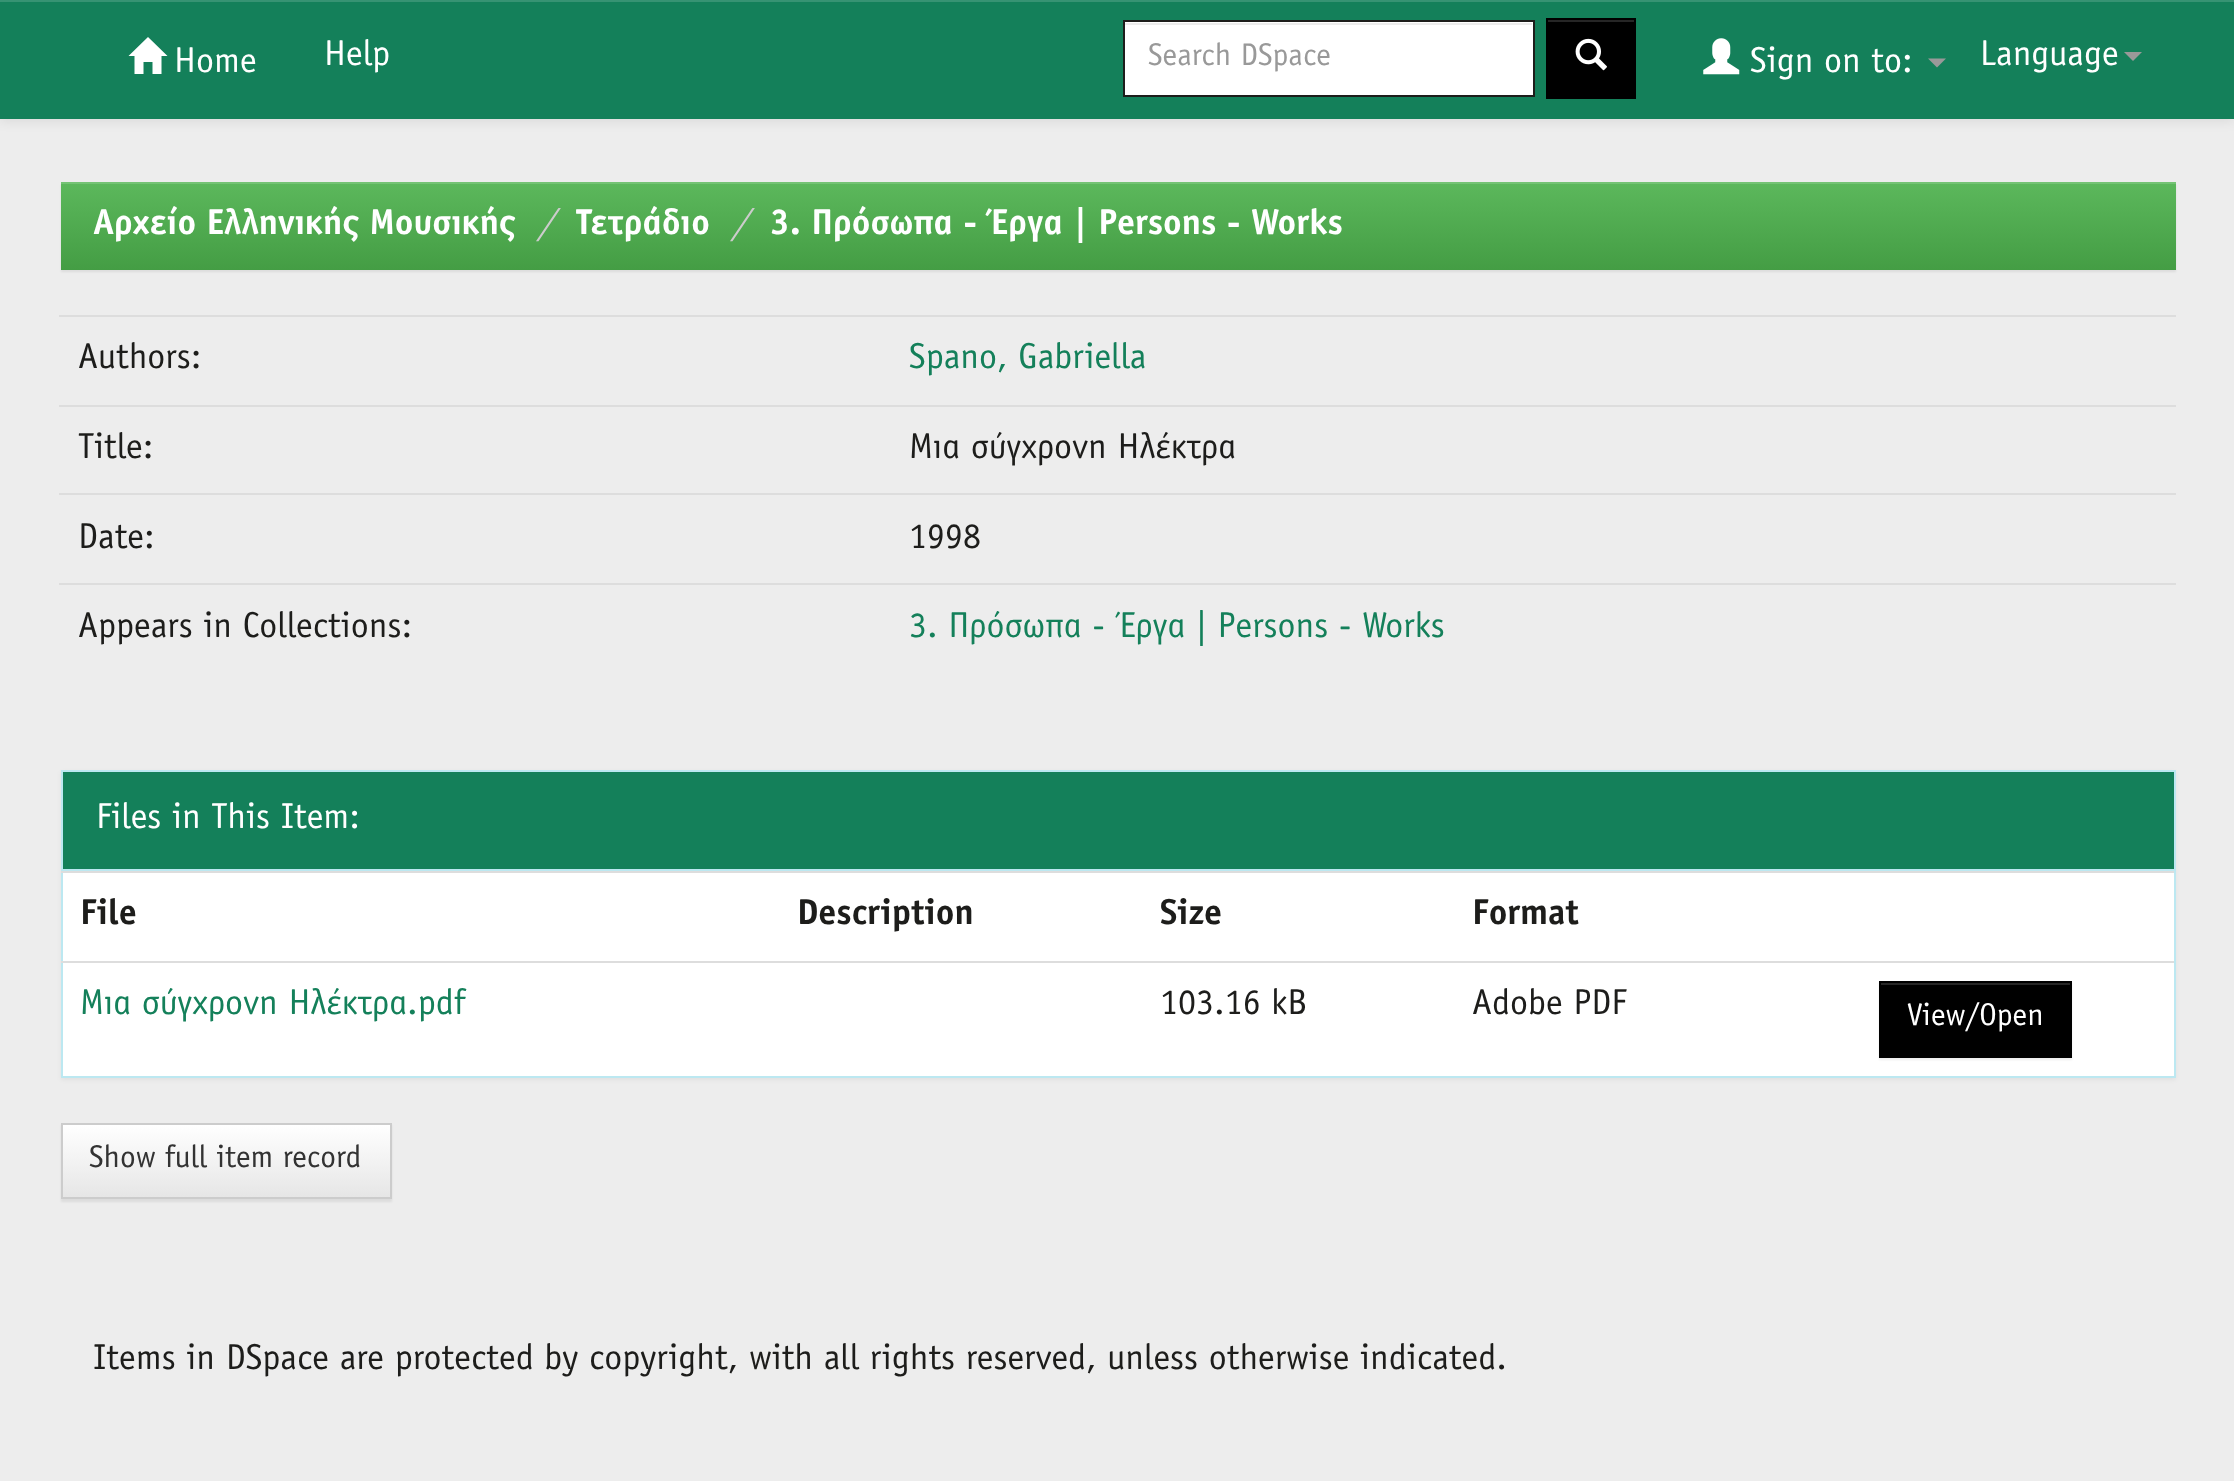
<svg xmlns="http://www.w3.org/2000/svg" xmlns:xlink="http://www.w3.org/1999/xlink" width="2234" height="1481" viewBox="0 0 2234 1481">
<style>
.cls-1{font:36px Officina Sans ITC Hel;fill:#ffffff}
.cls-2{font:31.5px Officina Sans ITC Hel;fill:#999999}
.cls-3{font:bold 36px Officina Sans ITC Hel;fill:#ffffff}
.cls-4{font:italic 36px Officina Sans ITC Hel;fill:#cccccc}
.cls-5{font:36px Officina Sans ITC Hel;fill:#1d1d1b}
.cls-6{font:36px Officina Sans ITC Hel;fill:#14805a}
.cls-7{font:bold 36px Officina Sans ITC Hel;fill:#1d1d1b}
.cls-8{font:31.5px Officina Sans ITC Hel;fill:#ffffff}
.cls-9{font:31.5px Officina Sans ITC Hel;fill:#333333}
</style>
<defs>
<linearGradient id="g1" gradientUnits="userSpaceOnUse" x1="1118" y1="182" x2="1118" y2="270"><stop offset="0" stop-color="#5cb85c"/><stop offset="1" stop-color="#449d44"/></linearGradient>
<linearGradient id="g2" gradientUnits="userSpaceOnUse" x1="226" y1="1125" x2="226" y2="1197"><stop offset="0" stop-color="#ffffff"/><stop offset="1" stop-color="#e6e6e6"/></linearGradient>
</defs>
<rect width="100%" height="100%" fill="#ededed"/>
<rect fill="#000000" fill-opacity="0.07" filter="blur(5.5px)" x="0" y="2" width="2234" height="120"/>
<rect fill="#14805a" x="0" y="2" width="2234" height="117"/>
<rect fill="#379373" x="0" y="0" width="2234" height="2"/>
<path fill="#ffffff" d="M167.5 56H161.5V74H152.5V62H143.5V74H134.5V56H128.5L148 37Z"/>
<rect fill="#ffffff" x="1125" y="22" width="408" height="73"/>
<rect fill="#ececec" x="1125" y="23" width="407" height="2"/>
<rect fill="none" stroke="#1d1d1b" stroke-width="2" x="1124" y="21" width="410" height="75"/>
<rect fill="#000000" x="1546" y="18" width="90" height="81"/>
<rect fill="#262626" x="1548" y="20" width="86" height="2"/>
<image xlink:href="image0.png" x="1575" y="38" width="32" height="33"/>
<image xlink:href="image1.png" x="1703" y="38" width="37" height="37"/>
<path fill="#999999" d="M1928 58.5H1946L1937 67.5Z"/>
<path fill="#999999" d="M2124 52H2142L2133 61Z"/>
<rect fill="#000000" fill-opacity="0.07" filter="blur(1px)" x="61" y="185" width="2115" height="87"/>
<rect fill="url(#g1)" x="61" y="184" width="2115" height="86"/>
<rect fill="#74c374" x="61" y="182" width="2115" height="2"/>
<rect fill="#dddddd" x="59" y="315" width="2117" height="2"/>
<rect fill="#dddddd" x="59" y="405" width="2117" height="2"/>
<rect fill="#dddddd" x="59" y="493" width="2117" height="2"/>
<rect fill="#dddddd" x="59" y="583" width="2117" height="2"/>
<rect fill="#000000" fill-opacity="0.05" filter="blur(2px)" x="61" y="772" width="2115" height="308"/>
<rect fill="#ffffff" x="63" y="873" width="2111" height="203"/>
<rect fill="none" stroke="#bce8f1" stroke-width="2" x="62" y="771" width="2113" height="306"/>
<rect fill="#14805a" x="63" y="772" width="2111" height="97"/>
<rect fill="#bce8f1" x="63" y="869" width="2111" height="2"/>
<rect fill="#dddddd" x="61" y="871" width="2113" height="2"/>
<rect fill="#dddddd" x="61" y="961" width="2113" height="2"/>
<rect fill="#000000" fill-opacity="0.07" filter="blur(1px)" x="1879" y="983" width="193" height="77"/>
<rect fill="#000000" x="1879" y="981" width="193" height="77"/>
<rect fill="#262626" x="1881" y="983" width="189" height="2"/>
<rect fill="#000000" fill-opacity="0.07" filter="blur(1px)" x="61" y="1125" width="331" height="77"/>
<rect fill="url(#g2)" x="63" y="1125" width="327" height="72"/>
<rect fill="none" stroke="#cccccc" stroke-width="2" x="62" y="1124" width="329" height="74"/>
<text class="cls-1" x="174" y="72">Home</text>
<text class="cls-1" x="324" y="65">Help</text>
<text class="cls-2" x="1148" y="65">Search DSpace</text>
<text class="cls-1" x="1750" y="72">Sign on to:</text>
<text class="cls-1" x="1980" y="65">Language</text>
<text class="cls-3" x="93" y="234">Aρχείο Ελληνικής Μουσικής</text>
<text class="cls-4" x="538" y="234">/</text>
<text class="cls-3" x="576" y="234">Τετράδιο</text>
<text class="cls-4" x="732" y="234">/</text>
<text class="cls-3" x="770" y="234">3. Πρόσωπα - Έργα | Persons - Works</text>
<text class="cls-5" x="78" y="368">Authors:</text>
<text class="cls-6" x="909" y="368">Spano, Gabriella</text>
<text class="cls-5" x="78" y="458">Title:</text>
<text class="cls-5" x="909" y="458">Μια σύγχρονη Ηλέκτρα</text>
<text class="cls-5" x="78" y="548">Date:</text>
<text class="cls-5" x="909" y="548">1998</text>
<text class="cls-5" x="78" y="637">Appears in Collections:</text>
<text class="cls-6" x="909" y="637">3. Πρόσωπα - Έργα | Persons - Works</text>
<text class="cls-1" x="96" y="828">Files in This Item:</text>
<text class="cls-7" x="80" y="924">File</text>
<text class="cls-7" x="797" y="924">Description</text>
<text class="cls-7" x="1160" y="924">Size</text>
<text class="cls-7" x="1472" y="924">Format</text>
<text class="cls-6" x="80" y="1014">Μια σύγχρονη Ηλέκτρα.pdf</text>
<text class="cls-5" x="1160" y="1014">103.16 kB</text>
<text class="cls-5" x="1472" y="1014">Adobe PDF</text>
<text class="cls-8" x="1907" y="1025">View/Open</text>
<text class="cls-9" x="89" y="1167">Show full item record</text>
<text class="cls-5" x="93" y="1369">Items in DSpace are protected by copyright, with all rights reserved, unless otherwise indicated.</text>
</svg>
